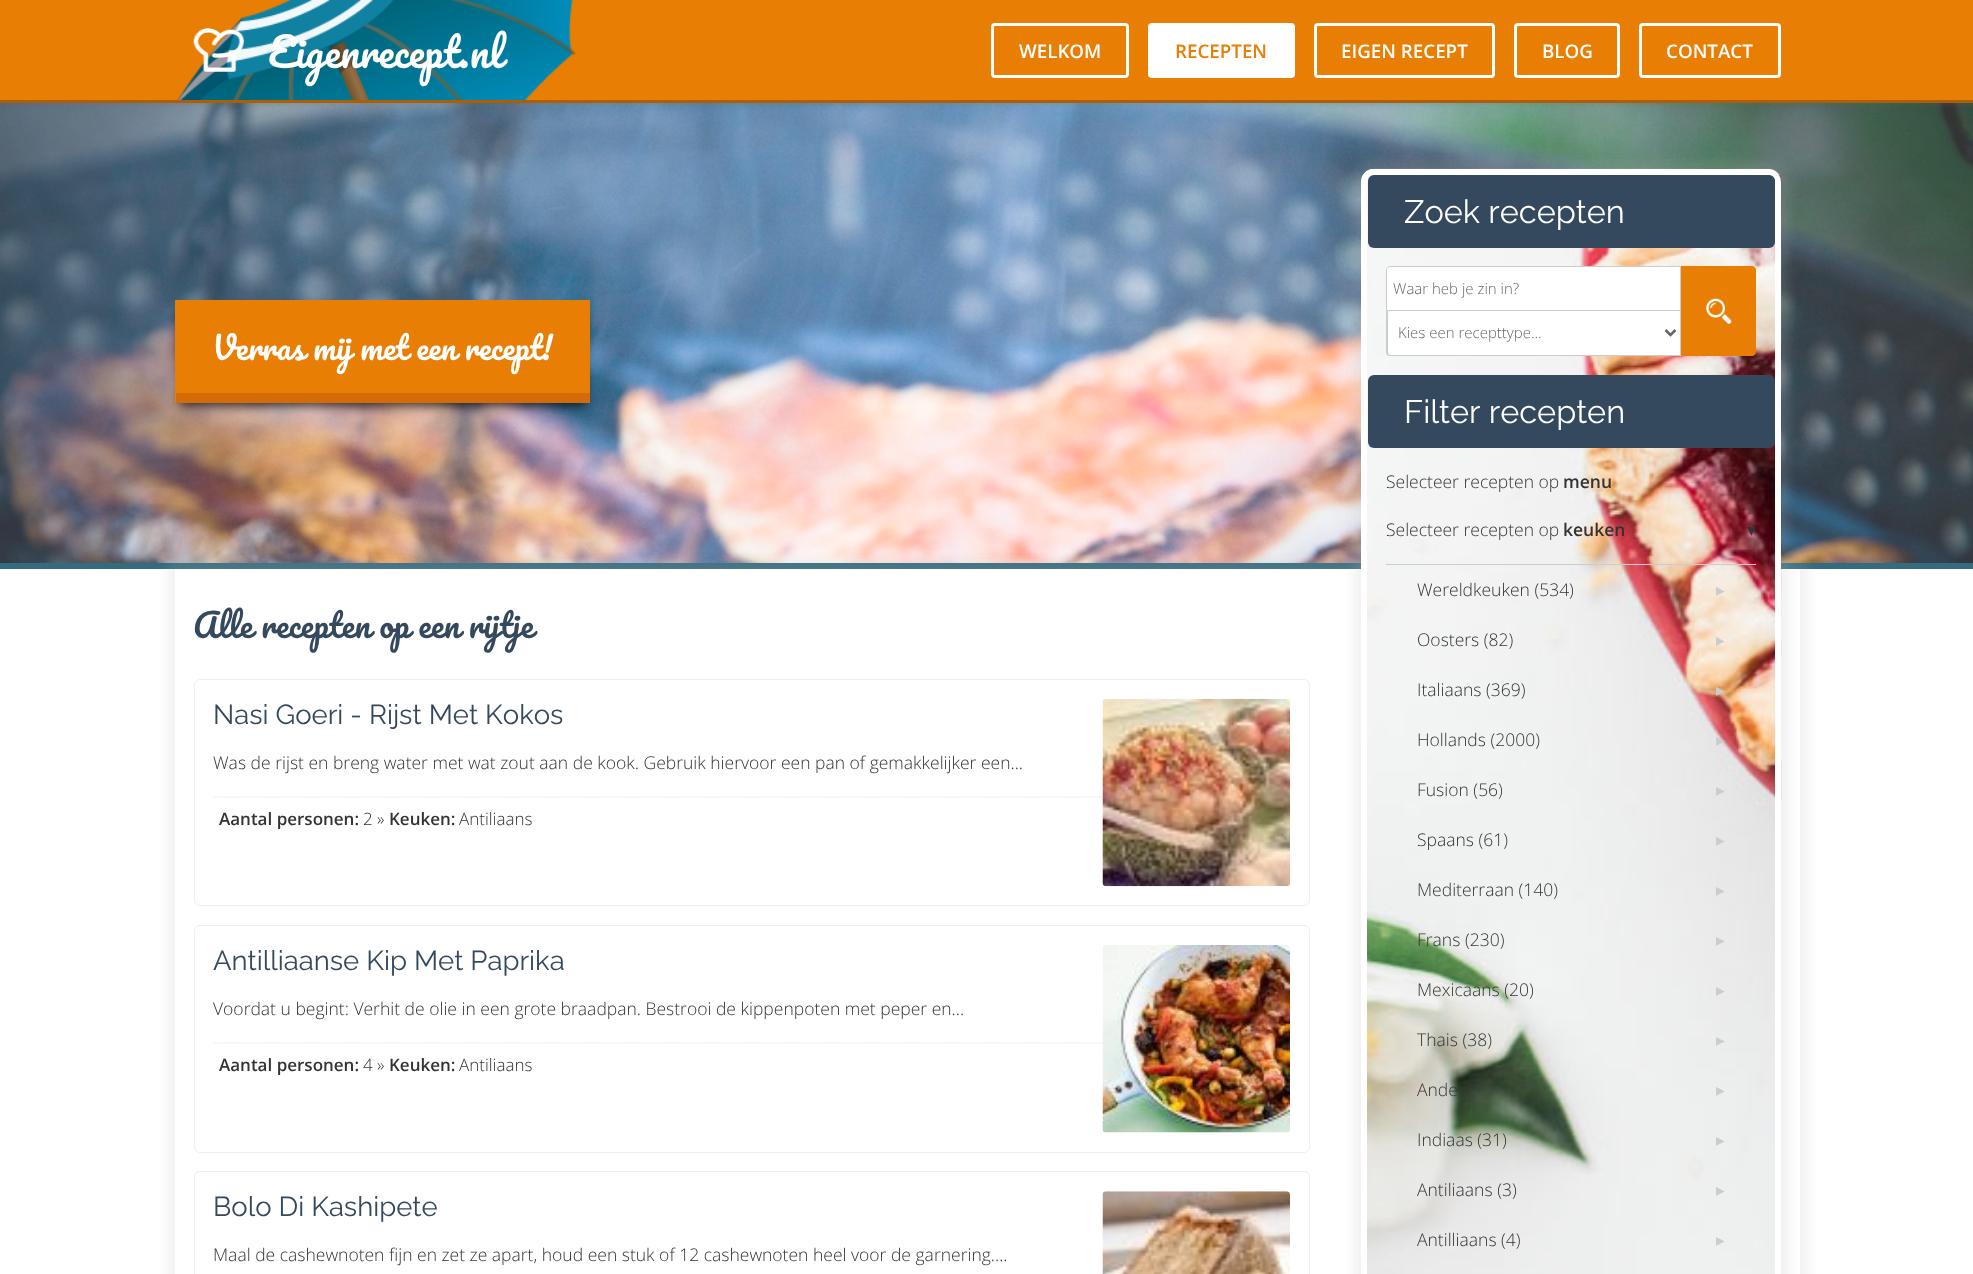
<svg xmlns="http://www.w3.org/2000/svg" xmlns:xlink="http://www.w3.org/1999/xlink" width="1973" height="1274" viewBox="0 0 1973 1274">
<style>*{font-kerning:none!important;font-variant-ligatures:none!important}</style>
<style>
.cls-1{font:40px Pacifico;fill:#ffffff}
.cls-2{font:600 18.75px Open Sans;fill:#ffffff}
.cls-3{font:600 18.75px Open Sans;fill:#e87e04}
.cls-4{font:32.5px Pacifico;fill:#34495e}
.cls-5{font:100 27.5px Raleway;fill:#34495e}
.cls-6{font:300 17.5px Open Sans;fill:#333333}
.cls-7{font:600 17px Open Sans;fill:#333333}
.cls-8{font:300 17px Open Sans;fill:#333333}
.cls-9{font:100 32.5px Raleway;fill:#ffffff}
.cls-10{font:300 15px Open Sans;fill:#666666}
.cls-11{font:600 17.5px Open Sans;fill:#333333}
.cls-12{font:17.5px DejaVu Sans;fill:#333333}
.cls-13{font:17.5px DejaVu Sans;fill:#cccccc}
.cls-14{font:31.25px Pacifico;fill:#ffffff}
</style>
<defs>
<clipPath id="clip1"><path d="M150 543H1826V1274H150ZM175 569H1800V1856H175Z" clip-rule="evenodd"/></clipPath>
</defs>
<rect width="100%" height="100%" fill="#ffffff"/>
<image xlink:href="image7.png" x="0" y="103" width="1973" height="460"/>
<rect fill="#646464" fill-opacity="0.4" filter="blur(3px)" x="0" y="0" width="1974" height="103"/>
<rect fill="#e87e04" x="0" y="0" width="1973" height="100"/>
<image xlink:href="image0.png" x="177" y="0" width="399" height="100"/>
<rect fill="#ad5f06" x="0" y="100" width="1973" height="3"/>
<image xlink:href="image1.png" x="193" y="28" width="51" height="44"/>
<rect fill="none" stroke="#ffffff" stroke-width="3" x="992.5" y="24.5" width="135" height="52" rx="2.5"/>
<rect fill="#ffffff" stroke="#ffffff" stroke-width="3" x="1149.5" y="24.5" width="144" height="52" rx="2.5"/>
<rect fill="none" stroke="#ffffff" stroke-width="3" x="1315.5" y="24.5" width="178" height="52" rx="2.5"/>
<rect fill="none" stroke="#ffffff" stroke-width="3" x="1515.5" y="24.5" width="103" height="52" rx="2.5"/>
<rect fill="none" stroke="#ffffff" stroke-width="3" x="1640.5" y="24.5" width="139" height="52" rx="2.5"/>
<rect fill="#346b81" x="0" y="563" width="1973" height="6"/>
<g clip-path="url(#clip1)">
<rect fill="#b3b3b3" fill-opacity="0.18" filter="blur(5.5px)" x="168" y="561" width="1640" height="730"/>
</g>
<rect fill="none" stroke="#efefef" x="194.5" y="679.5" width="1115" height="226" rx="5.5"/>
<path fill="none" stroke="#dfdfdf" stroke-width="1.2" stroke-dasharray="1.25 1.25" d="M214 797H1290"/>
<image xlink:href="image2.png" x="1102" y="698" width="188" height="189"/>
<rect fill="none" stroke="#efefef" x="194.5" y="925.5" width="1115" height="227" rx="5.5"/>
<path fill="none" stroke="#dfdfdf" stroke-width="1.2" stroke-dasharray="1.25 1.25" d="M214 1043H1290"/>
<image xlink:href="image3.png" x="1102" y="945" width="188" height="188"/>
<rect fill="none" stroke="#efefef" x="194.5" y="1171.5" width="1115" height="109" rx="5.5"/>
<image xlink:href="image4.png" x="1102" y="1191" width="188" height="83"/>
<rect fill="#b3b3b3" fill-opacity="0.18" filter="blur(5.5px)" x="1354" y="161" width="435" height="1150" rx="20"/>
<image xlink:href="image5.png" x="1361" y="168" width="421" height="1106"/>
<rect fill="none" stroke="#ffffff" stroke-width="6" x="1364" y="172" width="414" height="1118" rx="10"/>
<rect fill="#34495e" x="1368" y="175" width="407" height="73" rx="6"/>
<path fill="#ffffff" stroke="#cccccc" d="M1390 266.5H1680.5V310.5H1386.5V270C1386.5 268 1388 266.5 1390 266.5Z"/>
<path fill="#ffffff" d="M1386 311H1681V356H1390C1388 356 1386 354 1386 352Z"/>
<path fill="#cccccc" fill-rule="evenodd" d="M1386 311H1681V356H1390C1388 356 1386 355 1386 352ZM1388 311H1680V355H1390C1389 355 1388 354 1388 352Z"/>
<path fill="none" stroke="#666666" stroke-width="2.5" d="M1665.5 330L1670.5 335L1675.5 330"/>
<path fill="#e87e04" d="M1681 266H1752C1754 266 1756 268 1756 270V352C1756 354 1754 356 1752 356H1681Z"/>
<image xlink:href="image6.png" x="1706" y="298" width="26" height="26"/>
<rect fill="#34495e" x="1368" y="375" width="407" height="73" rx="6"/>
<rect fill="#cccccc" x="1386" y="564" width="370" height="1"/>
<rect fill="#000000" fill-opacity="0.75" filter="blur(5.5px)" x="180" y="314" width="405" height="92"/>
<rect fill="#e87e04" x="175" y="300" width="415" height="103" rx="1"/>
<rect fill="#d36c07" x="176" y="393" width="414" height="10"/>
<text class="cls-1" x="268" y="68">Eigenrecept.nl</text>
<text class="cls-2" x="1019" y="58">WELKOM</text>
<text class="cls-3" x="1175" y="58">RECEPTEN</text>
<text class="cls-2" x="1341" y="58">EIGEN RECEPT</text>
<text class="cls-2" x="1542" y="58">BLOG</text>
<text class="cls-2" x="1666" y="58">CONTACT</text>
<text class="cls-4" x="193" y="638">Alle recepten op een rijtje</text>
<text class="cls-5" x="213" y="724">Nasi Goeri - Rijst Met Kokos</text>
<text class="cls-6" x="213" y="769">Was de rijst en breng water met wat zout aan de kook. Gebruik hiervoor een pan of gemakkelijker een...</text>
<text class="cls-7" x="219" y="825">Aantal personen:</text>
<text class="cls-8" x="363" y="825">2 »</text>
<text class="cls-7" x="389" y="825">Keuken:</text>
<text class="cls-8" x="459" y="825">Antiliaans</text>
<text class="cls-5" x="213" y="970">Antilliaanse Kip Met Paprika</text>
<text class="cls-6" x="213" y="1015">Voordat u begint: Verhit de olie in een grote braadpan. Bestrooi de kippenpoten met peper en...</text>
<text class="cls-7" x="219" y="1071">Aantal personen:</text>
<text class="cls-8" x="363" y="1071">4 »</text>
<text class="cls-7" x="389" y="1071">Keuken:</text>
<text class="cls-8" x="459" y="1071">Antiliaans</text>
<text class="cls-5" x="213" y="1216">Bolo Di Kashipete</text>
<text class="cls-6" x="213" y="1261">Maal de cashewnoten fijn en zet ze apart, houd een stuk of 12 cashewnoten heel voor de garnering....</text>
<text class="cls-9" x="1404" y="223">Zoek recepten</text>
<text class="cls-10" x="1393" y="294">Waar heb je zin in?</text>
<text class="cls-10" x="1398" y="338">Kies een recepttype...</text>
<text class="cls-9" x="1404" y="423">Filter recepten</text>
<text class="cls-6" x="1386" y="488">Selecteer recepten op</text>
<text class="cls-11" x="1563" y="488">menu</text>
<text class="cls-6" x="1386" y="536">Selecteer recepten op</text>
<text class="cls-11" x="1563" y="536">keuken</text>
<text class="cls-12" x="1747" y="536">▾</text>
<text class="cls-6" x="1417" y="596">Wereldkeuken (534)</text>
<text class="cls-13" x="1716" y="596">▸</text>
<text class="cls-6" x="1417" y="646">Oosters (82)</text>
<text class="cls-13" x="1716" y="646">▸</text>
<text class="cls-6" x="1417" y="696">Italiaans (369)</text>
<text class="cls-13" x="1716" y="696">▸</text>
<text class="cls-6" x="1417" y="746">Hollands (2000)</text>
<text class="cls-13" x="1716" y="746">▸</text>
<text class="cls-6" x="1417" y="796">Fusion (56)</text>
<text class="cls-13" x="1716" y="796">▸</text>
<text class="cls-6" x="1417" y="846">Spaans (61)</text>
<text class="cls-13" x="1716" y="846">▸</text>
<text class="cls-6" x="1417" y="896">Mediterraan (140)</text>
<text class="cls-13" x="1716" y="896">▸</text>
<text class="cls-6" x="1417" y="946">Frans (230)</text>
<text class="cls-13" x="1716" y="946">▸</text>
<text class="cls-6" x="1417" y="996">Mexicaans (20)</text>
<text class="cls-13" x="1716" y="996">▸</text>
<text class="cls-6" x="1417" y="1046">Thais (38)</text>
<text class="cls-13" x="1716" y="1046">▸</text>
<text class="cls-6" x="1417" y="1096">Ande</text>
<text class="cls-13" x="1716" y="1096">▸</text>
<text class="cls-6" x="1417" y="1146">Indiaas (31)</text>
<text class="cls-13" x="1716" y="1146">▸</text>
<text class="cls-6" x="1417" y="1196">Antiliaans (3)</text>
<text class="cls-13" x="1716" y="1196">▸</text>
<text class="cls-6" x="1417" y="1246">Antilliaans (4)</text>
<text class="cls-13" x="1716" y="1246">▸</text>
<text class="cls-14" x="212" y="360">Verras mij met een recept!</text>
</svg>
